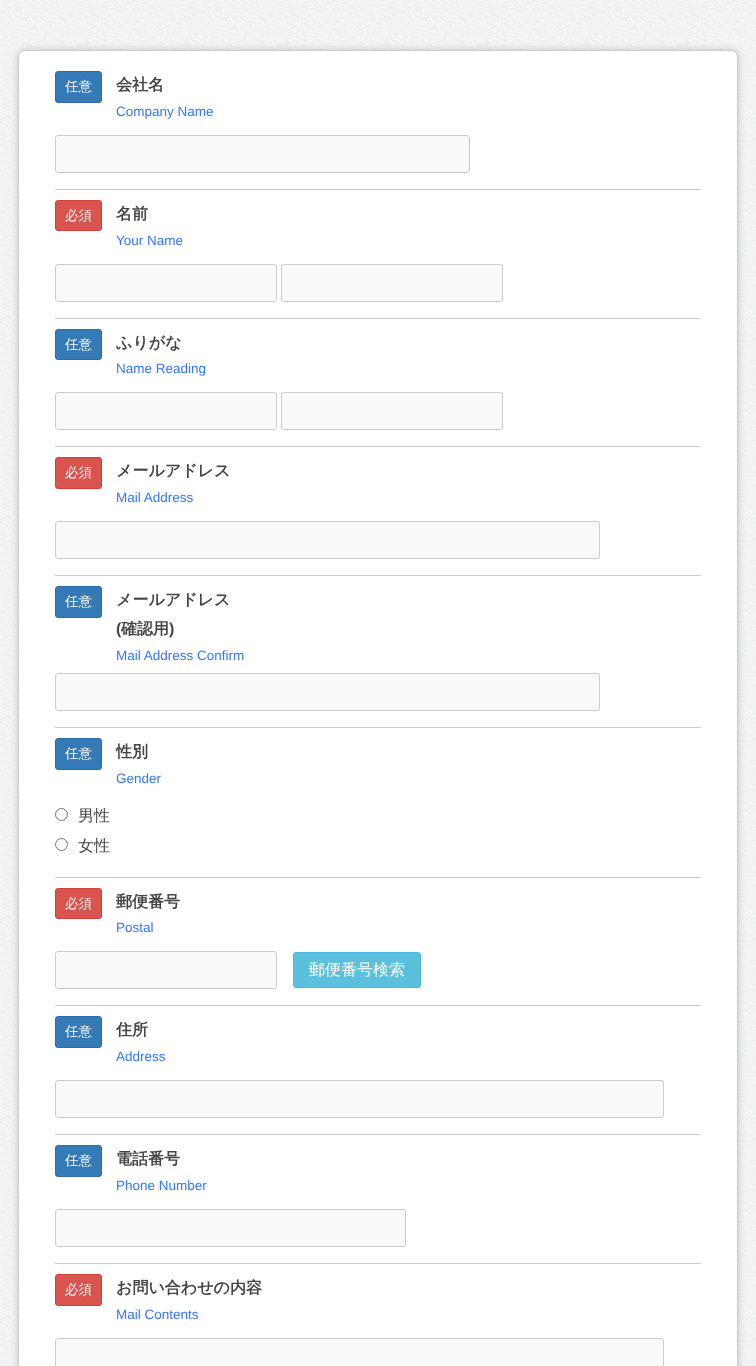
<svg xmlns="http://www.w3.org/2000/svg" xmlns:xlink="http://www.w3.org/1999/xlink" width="756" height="1366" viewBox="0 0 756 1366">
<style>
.cls-1{font:500 13.5px WenQuanYi Zen Hei;fill:#ffffff}
.cls-2{font:bold 16px WenQuanYi Zen Hei;fill:#454545}
.cls-3{font:13.5px Liberation Sans;fill:#3377ff}
.cls-4{font:bold 16px Liberation Sans;fill:#454545}
.cls-5{font:500 16px WenQuanYi Zen Hei;fill:#454545}
.cls-6{font:500 16px WenQuanYi Zen Hei;fill:#ffffff}
</style>
<rect width="100%" height="100%" fill="#ffffff"/>
<image xlink:href="image0.png" x="0" y="0" width="756" height="1366"/>
<rect fill="#000000" fill-opacity="0.2" filter="blur(3.5px)" x="18" y="50" width="720" height="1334" rx="7"/>
<rect fill="#ffffff" stroke="#cccccc" x="18.5" y="50.5" width="719" height="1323" rx="6.5"/>
<rect fill="#337ab7" stroke="#2e6da4" x="55.5" y="71.5" width="46" height="31" rx="2.5"/>
<rect fill="#fafafa" stroke="#cccccc" x="55.5" y="135.5" width="414" height="37" rx="2.5"/>
<rect fill="#cccccc" x="55" y="189" width="646" height="1"/>
<rect fill="#d9534f" stroke="#d43f3a" x="55.5" y="200.5" width="46" height="30" rx="2.5"/>
<rect fill="#fafafa" stroke="#cccccc" x="55.5" y="264.5" width="221" height="37" rx="2.5"/>
<rect fill="#fafafa" stroke="#cccccc" x="281.5" y="264.5" width="221" height="37" rx="2.5"/>
<rect fill="#cccccc" x="55" y="318" width="646" height="1"/>
<rect fill="#337ab7" stroke="#2e6da4" x="55.5" y="329.5" width="46" height="30" rx="2.5"/>
<rect fill="#fafafa" stroke="#cccccc" x="55.5" y="392.5" width="221" height="37" rx="2.5"/>
<rect fill="#fafafa" stroke="#cccccc" x="281.5" y="392.5" width="221" height="37" rx="2.5"/>
<rect fill="#cccccc" x="55" y="446" width="646" height="1"/>
<rect fill="#d9534f" stroke="#d43f3a" x="55.5" y="457.5" width="46" height="31" rx="2.5"/>
<rect fill="#fafafa" stroke="#cccccc" x="55.5" y="521.5" width="544" height="37" rx="2.5"/>
<rect fill="#cccccc" x="55" y="575" width="646" height="1"/>
<rect fill="#337ab7" stroke="#2e6da4" x="55.5" y="586.5" width="46" height="31" rx="2.5"/>
<rect fill="#fafafa" stroke="#cccccc" x="55.5" y="673.5" width="544" height="37" rx="2.5"/>
<rect fill="#cccccc" x="55" y="727" width="646" height="1"/>
<rect fill="#337ab7" stroke="#2e6da4" x="55.5" y="738.5" width="46" height="31" rx="2.5"/>
<circle fill="none" stroke="#767676" cx="61.5" cy="814.5" r="6"/>
<circle fill="none" stroke="#767676" cx="61.5" cy="844.5" r="6"/>
<rect fill="#cccccc" x="55" y="877" width="646" height="1"/>
<rect fill="#d9534f" stroke="#d43f3a" x="55.5" y="888.5" width="46" height="30" rx="2.5"/>
<rect fill="#fafafa" stroke="#cccccc" x="55.5" y="951.5" width="221" height="37" rx="2.5"/>
<rect fill="#5bc0de" stroke="#46b8da" x="293.5" y="952.5" width="127" height="35" rx="2.5"/>
<rect fill="#cccccc" x="55" y="1005" width="646" height="1"/>
<rect fill="#337ab7" stroke="#2e6da4" x="55.5" y="1016.5" width="46" height="31" rx="2.5"/>
<rect fill="#fafafa" stroke="#cccccc" x="55.5" y="1080.5" width="608" height="37" rx="2.5"/>
<rect fill="#cccccc" x="55" y="1134" width="646" height="1"/>
<rect fill="#337ab7" stroke="#2e6da4" x="55.5" y="1145.5" width="46" height="31" rx="2.5"/>
<rect fill="#fafafa" stroke="#cccccc" x="55.5" y="1209.5" width="350" height="37" rx="2.5"/>
<rect fill="#cccccc" x="55" y="1263" width="646" height="1"/>
<rect fill="#d9534f" stroke="#d43f3a" x="55.5" y="1274.5" width="46" height="31" rx="2.5"/>
<rect fill="#fafafa" stroke="#cccccc" x="55.5" y="1338.5" width="608" height="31" rx="2.5"/>
<text class="cls-1" x="65" y="91">任意</text>
<text class="cls-2" x="116" y="90">会社名</text>
<text class="cls-3" x="116" y="116">Company Name</text>
<text class="cls-1" x="65" y="220">必須</text>
<text class="cls-2" x="116" y="219">名前</text>
<text class="cls-3" x="116" y="245">Your Name</text>
<text class="cls-1" x="65" y="349">任意</text>
<text class="cls-2" x="116" y="348">ふりがな</text>
<text class="cls-3" x="116" y="373">Name Reading</text>
<text class="cls-1" x="65" y="477">必須</text>
<text class="cls-2" x="116" y="476">メールアドレス</text>
<text class="cls-3" x="116" y="502">Mail Address</text>
<text class="cls-1" x="65" y="606">任意</text>
<text class="cls-2" x="116" y="605">メールアドレス</text>
<text class="cls-4" x="116" y="634">(</text>
<text class="cls-2" x="121" y="634">確認用</text>
<text class="cls-4" x="169" y="634">)</text>
<text class="cls-3" x="116" y="660">Mail Address Confirm</text>
<text class="cls-1" x="65" y="758">任意</text>
<text class="cls-2" x="116" y="757">性別</text>
<text class="cls-3" x="116" y="783">Gender</text>
<text class="cls-5"><tspan x="78" y="821">男性</tspan><tspan x="78" y="851">女性</tspan></text>
<text class="cls-1" x="65" y="908">必須</text>
<text class="cls-2" x="116" y="907">郵便番号</text>
<text class="cls-3" x="116" y="932">Postal</text>
<text class="cls-6" x="309" y="975">郵便番号検索</text>
<text class="cls-1" x="65" y="1036">任意</text>
<text class="cls-2" x="116" y="1035">住所</text>
<text class="cls-3" x="116" y="1061">Address</text>
<text class="cls-1" x="65" y="1165">任意</text>
<text class="cls-2" x="116" y="1164">電話番号</text>
<text class="cls-3" x="116" y="1190">Phone Number</text>
<text class="cls-1" x="65" y="1294">必須</text>
<text class="cls-2" x="116" y="1293">お問い合わせの内容</text>
<text class="cls-3" x="116" y="1319">Mail Contents</text>
</svg>
